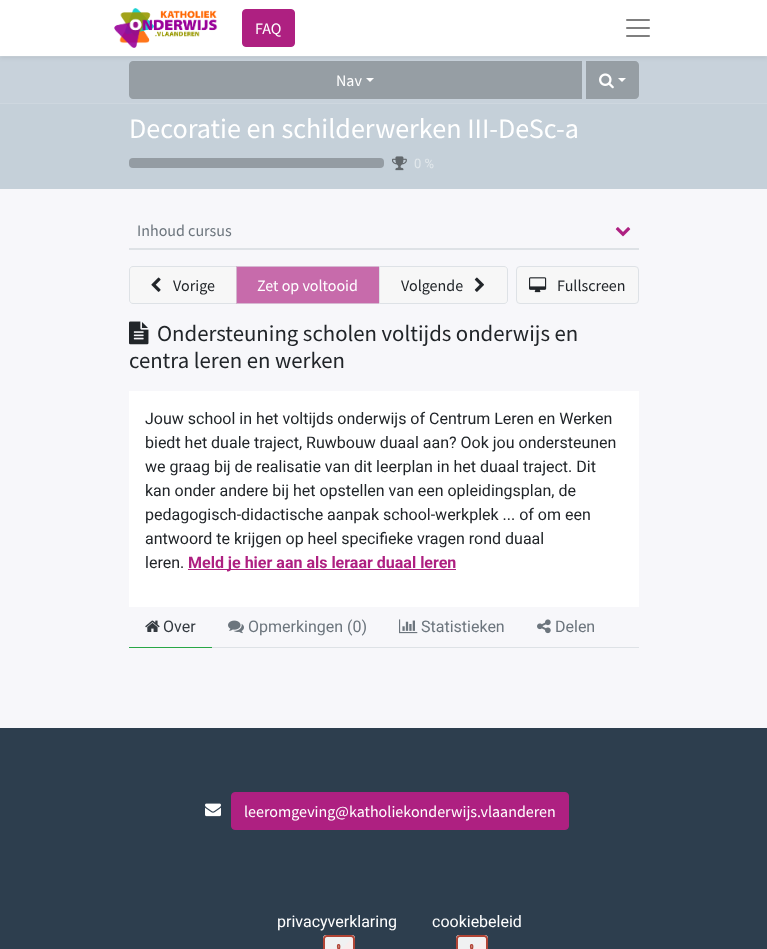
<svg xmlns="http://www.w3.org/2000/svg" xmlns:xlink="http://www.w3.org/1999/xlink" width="767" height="949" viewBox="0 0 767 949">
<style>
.cls-1{font:16px Source Sans Pro;fill:#ffffff}
.cls-2{font:28.1px Source Sans Pro;fill:#ffffff}
.cls-3{font:13px Roboto;fill:#e2e8ec}
.cls-4{font:16px Source Sans Pro;fill:#6c757d}
.cls-5{font:16px Source Sans Pro;fill:#212529}
.cls-6{font:22.75px Source Sans Pro;fill:#212529}
.cls-7{font:16px Roboto;fill:#212529}
.cls-8{font:bold 16px Roboto;fill:#ae2081}
.cls-9{font:16px Roboto;fill:#343a40}
.cls-10{font:16px Roboto;fill:#6c757d}
.cls-11{font:16px Roboto;fill:#ffffff}
</style>
<rect width="100%" height="100%" fill="#f7f7fa"/>
<rect fill="#c8d2db" x="0" y="57" width="767" height="46"/>
<rect fill="#ced7df" x="0" y="56" width="767" height="1"/>
<path fill="#969ea4" d="M133 61H582V99H133C131 99 129 97 129 95V65C129 63 131 61 133 61Z"/>
<path fill="#969ea4" d="M586 61H635C637 61 639 63 639 65V95C639 97 637 99 635 99H586Z"/>
<rect fill="#000000" fill-opacity="0.07" filter="blur(2px)" x="0" y="2" width="767" height="56"/>
<rect fill="#ffffff" x="0" y="0" width="767" height="56"/>
<image xlink:href="image0.png" x="114" y="8" width="104" height="40"/>
<rect fill="#ae2081" stroke="#ae2081" x="242.5" y="9.5" width="52" height="37" rx="3.5"/>
<image xlink:href="image1.png" x="626" y="19" width="24" height="18"/>
<rect fill="#c5d0d9" x="0" y="104" width="767" height="85"/>
<rect fill="#ced7df" x="0" y="103" width="767" height="1"/>
<path fill="#ffffff" d="M366 78H374L370 82Z"/>
<image xlink:href="image2.png" x="599" y="73" width="15" height="16"/>
<path fill="#ffffff" d="M618 78H626L622 82Z"/>
<rect fill="#949ca3" x="129" y="158" width="255" height="10" rx="4"/>
<image xlink:href="image3.png" x="392" y="156" width="15" height="15"/>
<rect fill="#dee2e6" x="129" y="248" width="510" height="2"/>
<image xlink:href="image4.png" x="615" y="227" width="16" height="10"/>
<path fill="#f7f7f7" stroke="#dee2e6" d="M133 266.5H236.5V303.5H133C131 303.5 129.5 302 129.5 300V270C129.5 268 131 266.5 133 266.5Z"/>
<image xlink:href="image5.png" x="151" y="277" width="10" height="15"/>
<rect fill="#ae2081" fill-opacity="0.65" x="236" y="266" width="143" height="38"/>
<rect fill="none" stroke="#dee2e6" stroke-opacity="0.65" x="236.5" y="266.5" width="143" height="37"/>
<path fill="#f7f7f7" stroke="#dee2e6" d="M379.5 266.5H504C506 266.5 507.5 268 507.5 270V300C507.5 302 506 303.5 504 303.5H379.5Z"/>
<image xlink:href="image6.png" x="474" y="277" width="10" height="15"/>
<rect fill="#f7f7f7" stroke="#dee2e6" x="516.5" y="266.5" width="122" height="37" rx="3.5"/>
<image xlink:href="image7.png" x="529" y="277" width="18" height="16"/>
<image xlink:href="image8.png" x="129" y="321" width="20" height="24"/>
<rect fill="#ffffff" x="129" y="391" width="510" height="216"/>
<rect fill="#ae2081" x="188" y="569" width="268" height="1"/>
<rect fill="#dee2e6" x="212" y="647" width="427" height="1"/>
<rect fill="#28a745" x="129" y="647" width="83" height="1"/>
<image xlink:href="image9.png" x="145" y="620" width="15" height="12"/>
<image xlink:href="image10.png" x="228" y="620" width="16" height="14"/>
<image xlink:href="image11.png" x="399" y="619" width="19" height="15"/>
<image xlink:href="image12.png" x="537" y="619" width="14" height="15"/>
<rect fill="#2d3e4e" x="0" y="728" width="767" height="221"/>
<image xlink:href="image13.png" x="205" y="803" width="16" height="14"/>
<rect fill="#ae2081" stroke="#ae2081" x="231.5" y="792.5" width="337" height="37" rx="3.5"/>
<image xlink:href="image14.png" x="323" y="935" width="32" height="14"/>
<image xlink:href="image14.png" x="456" y="935" width="32" height="14"/>
<text class="cls-1" x="255" y="34">FAQ</text>
<text class="cls-1" x="336" y="86">Nav</text>
<text class="cls-2" x="129" y="138">Decoratie en schilderwerken III-DeSc-a</text>
<text class="cls-3" x="414" y="168">0 %</text>
<text class="cls-4" x="137" y="236">Inhoud cursus</text>
<text class="cls-5" x="173" y="291">Vorige</text>
<text class="cls-1" x="257" y="291">Zet op voltooid</text>
<text class="cls-5" x="401" y="291">Volgende</text>
<text class="cls-5" x="557" y="291">Fullscreen</text>
<text class="cls-6" x="157" y="341">Ondersteuning scholen voltijds onderwijs en</text>
<text class="cls-6" x="129" y="368">centra leren en werken</text>
<text class="cls-7"><tspan x="145" y="424">Jouw school in het voltijds onderwijs of Centrum Leren en Werken</tspan><tspan x="145" y="448">biedt het duale traject, Ruwbouw duaal aan? Ook jou ondersteunen</tspan><tspan x="145" y="472">we graag bij de realisatie van dit leerplan in het duaal traject. Dit</tspan><tspan x="145" y="496">kan onder andere bij het opstellen van een opleidingsplan, de</tspan><tspan x="145" y="520">pedagogisch-didactische aanpak school-werkplek ... of om een</tspan><tspan x="145" y="544">antwoord te krijgen op heel specifieke vragen rond duaal</tspan><tspan x="145" y="568">leren.</tspan></text>
<text class="cls-8" x="188" y="568">Meld je hier aan als leraar duaal leren</text>
<text class="cls-9" x="163" y="632">Over</text>
<text class="cls-10" x="248" y="632">Opmerkingen (0)</text>
<text class="cls-10" x="421" y="632">Statistieken</text>
<text class="cls-10" x="555" y="632">Delen</text>
<text class="cls-1" x="244" y="817">leeromgeving@katholiekonderwijs.vlaanderen</text>
<text class="cls-11" x="277" y="927">privacyverklaring</text>
<text class="cls-11" x="432" y="927">cookiebeleid</text>
</svg>
